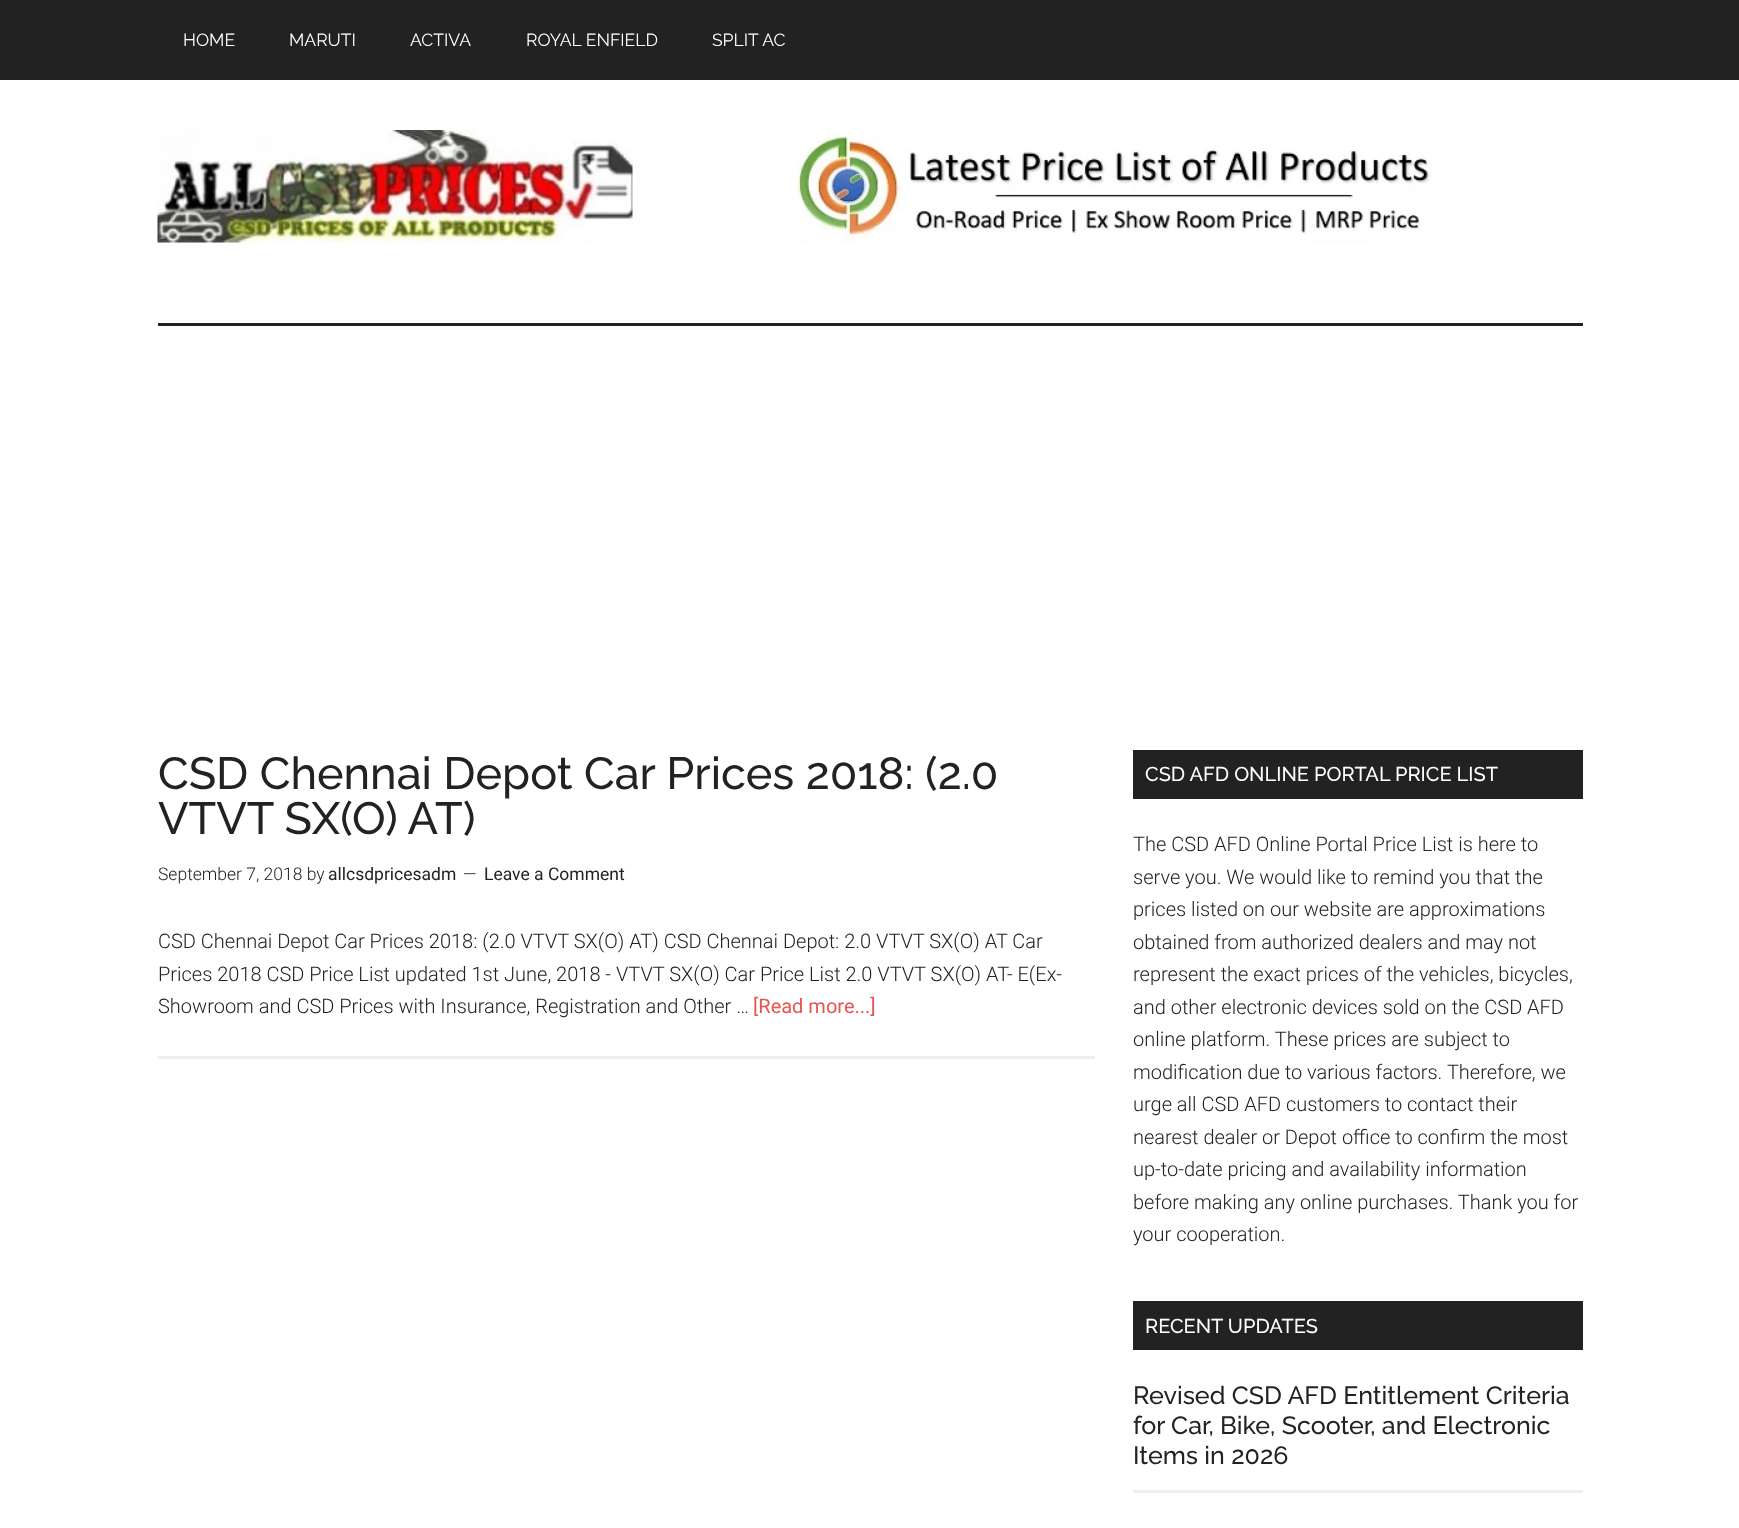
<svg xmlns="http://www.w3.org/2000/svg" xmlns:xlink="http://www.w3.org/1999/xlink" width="1739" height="1528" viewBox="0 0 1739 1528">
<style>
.cls-1{font:17.5px Raleway;fill:#ffffff}
.cls-2{font:500 45px Raleway;fill:#222222}
.cls-3{font:300 17.5px Roboto;fill:#222222}
.cls-4{font:17.5px Roboto;fill:#222222}
.cls-5{font:300 20px Roboto;fill:#222222}
.cls-6{font:20px Roboto;fill:#e8554e}
.cls-7{font:500 20px Raleway;fill:#ffffff}
.cls-8{font:500 25px Raleway;fill:#222222}
</style>
<rect width="100%" height="100%" fill="#ffffff"/>
<rect fill="#222222" x="0" y="0" width="1739" height="80"/>
<rect fill="#222222" x="158" y="323" width="1425" height="3"/>
<image xlink:href="image0.png" x="157" y="130" width="476" height="113"/>
<image xlink:href="image1.png" x="792" y="130" width="640" height="112"/>
<rect fill="#eeeeee" x="158" y="1056" width="937" height="3"/>
<rect fill="#222222" x="1133" y="750" width="450" height="49"/>
<rect fill="#222222" x="1133" y="1301" width="450" height="49"/>
<rect fill="#eeeeee" x="1133" y="1490" width="450" height="3"/>
<text class="cls-1" x="183" y="46">HOME</text>
<text class="cls-1" x="289" y="46">MARUTI</text>
<text class="cls-1" x="410" y="46">ACTIVA</text>
<text class="cls-1" x="526" y="46">ROYAL ENFIELD</text>
<text class="cls-1" x="712" y="46">SPLIT AC</text>
<text class="cls-2"><tspan x="158" y="789">CSD Chennai Depot Car Prices 2018: (2.0</tspan><tspan x="158" y="834">VTVT SX(O) AT)</tspan></text>
<text class="cls-3" x="158" y="880">September 7, 2018 by</text>
<text class="cls-4" x="328" y="880">allcsdpricesadm</text>
<text class="cls-3" x="463" y="880">—</text>
<text class="cls-4" x="484" y="880">Leave a Comment</text>
<text class="cls-5"><tspan x="158" y="948">CSD Chennai Depot Car Prices 2018: (2.0 VTVT SX(O) AT) CSD Chennai Depot: 2.0 VTVT SX(O) AT Car</tspan><tspan x="158" y="981">Prices 2018 CSD Price List updated 1st June, 2018 - VTVT SX(O) Car Price List 2.0 VTVT SX(O) AT- E(Ex-</tspan><tspan x="158" y="1013">Showroom and CSD Prices with Insurance, Registration and Other …</tspan></text>
<text class="cls-6" x="753" y="1013">[Read more...]</text>
<text class="cls-7" x="1145" y="781">CSD AFD ONLINE PORTAL PRICE LIST</text>
<text class="cls-5"><tspan x="1133" y="851">The CSD AFD Online Portal Price List is here to</tspan><tspan x="1133" y="884">serve you. We would like to remind you that the</tspan><tspan x="1133" y="916">prices listed on our website are approximations</tspan><tspan x="1133" y="949">obtained from authorized dealers and may not</tspan><tspan x="1133" y="981">represent the exact prices of the vehicles, bicycles,</tspan><tspan x="1133" y="1014">and other electronic devices sold on the CSD AFD</tspan><tspan x="1133" y="1046">online platform. These prices are subject to</tspan><tspan x="1133" y="1079">modification due to various factors. Therefore, we</tspan><tspan x="1133" y="1111">urge all CSD AFD customers to contact their</tspan><tspan x="1133" y="1144">nearest dealer or Depot office to confirm the most</tspan><tspan x="1133" y="1176">up-to-date pricing and availability information</tspan><tspan x="1133" y="1209">before making any online purchases. Thank you for</tspan><tspan x="1133" y="1241">your cooperation.</tspan></text>
<text class="cls-7" x="1145" y="1333">RECENT UPDATES</text>
<text class="cls-8"><tspan x="1133" y="1404">Revised CSD AFD Entitlement Criteria</tspan><tspan x="1133" y="1434">for Car, Bike, Scooter, and Electronic</tspan><tspan x="1133" y="1464">Items in 2026</tspan></text>
</svg>
